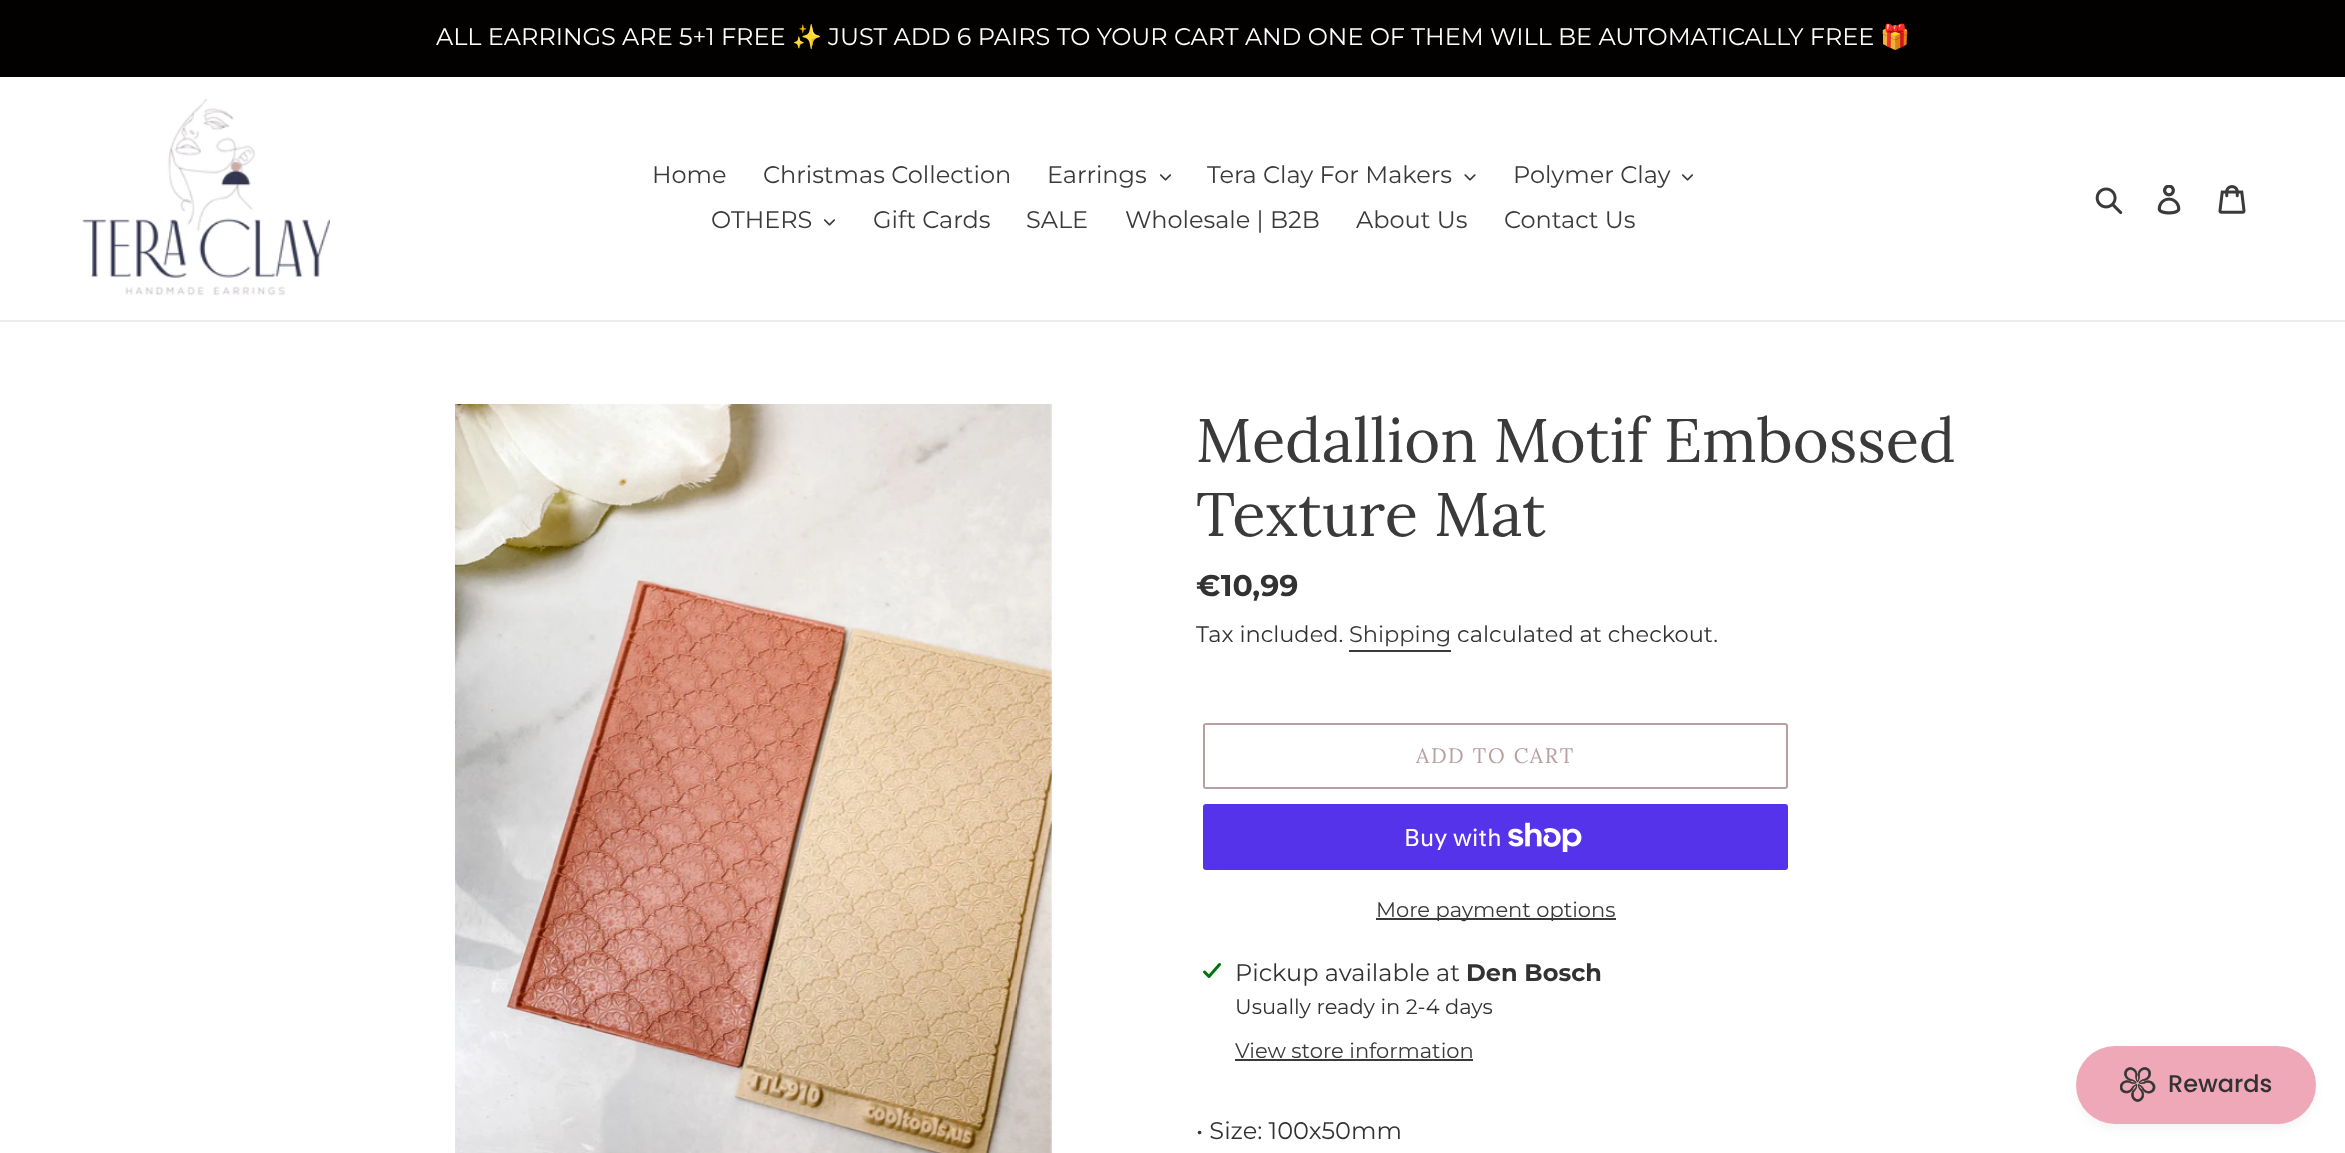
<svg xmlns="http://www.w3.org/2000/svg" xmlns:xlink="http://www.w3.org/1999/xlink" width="2345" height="1153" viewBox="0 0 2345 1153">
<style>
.cls-1{font:24px Montserrat;fill:#ffffff}
.cls-2{font:24px Noto Color Emoji;fill:#ffffff}
.cls-3{font:24px Montserrat;fill:#3a3a3a}
.cls-4{font:61.5px Lora;fill:#3a3a3a}
.cls-5{font:bold 30px Montserrat;fill:#333232}
.cls-6{font:22.5px Montserrat;fill:#333232}
.cls-7{font:22.5px Montserrat;fill:#3a3a3a}
.cls-8{font:21px Lora;letter-spacing:1.75px;fill:#b89fa0}
.cls-9{font:24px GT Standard;fill:#ffffff}
.cls-10{font:21px Montserrat;fill:#3a3a3a}
.cls-11{font:24px Montserrat;fill:#333232}
.cls-12{font:bold 24px Montserrat;fill:#333232}
.cls-13{font:21px Montserrat;fill:#333232}
.cls-14{font:500 24px Poppins;fill:#333232}
</style>
<rect width="100%" height="100%" fill="#ffffff"/>
<rect fill="#030000" x="0" y="0" width="2345" height="77"/>
<rect fill="#ebebeb" x="0" y="320" width="2345" height="2"/>
<image xlink:href="image0.png" x="82" y="99" width="248" height="197"/>
<image xlink:href="image1.png" x="1160" y="174" width="11" height="7"/>
<image xlink:href="image2.png" x="1464" y="174" width="12" height="7"/>
<image xlink:href="image1.png" x="1682" y="174" width="11" height="7"/>
<image xlink:href="image1.png" x="824" y="219" width="11" height="7"/>
<image xlink:href="image3.png" x="2095" y="187" width="28" height="28"/>
<image xlink:href="image4.png" x="2157" y="185" width="24" height="30"/>
<image xlink:href="image5.png" x="2218" y="185" width="28" height="29"/>
<image xlink:href="image6.png" x="455" y="404" width="597" height="749"/>
<rect fill="#3a3a3a" x="1349" y="650" width="102" height="2"/>
<rect fill="none" stroke="#b89fa0" stroke-width="2" x="1204" y="724" width="583" height="64" rx="2"/>
<rect fill="#5433eb" x="1203" y="804" width="585" height="66" rx="3"/>
<image xlink:href="image7.png" x="1508" y="822" width="74" height="30"/>
<rect fill="#3a3a3a" x="1376" y="918" width="240" height="2"/>
<image xlink:href="image8.png" x="1203" y="963" width="18" height="15"/>
<rect fill="#3a3a3a" x="1235" y="1059" width="238" height="2"/>
<rect fill="#444444" fill-opacity="0.08" filter="blur(6px)" x="2079" y="1055" width="234" height="72" rx="36"/>
<rect fill="#efa8b8" x="2076" y="1046" width="240" height="78" rx="39"/>
<image xlink:href="image9.png" x="2120" y="1067" width="36" height="35"/>
<text class="cls-1" x="436" y="45">ALL EARRINGS ARE 5+1 FREE</text>
<text class="cls-2" x="792" y="45">✨</text>
<text class="cls-1" x="828" y="45">JUST ADD 6 PAIRS TO YOUR CART AND ONE OF THEM WILL BE AUTOMATICALLY FREE</text>
<text class="cls-2" x="1880" y="45">🎁</text>
<text class="cls-3" x="652" y="183">Home</text>
<text class="cls-3" x="763" y="183">Christmas Collection</text>
<text class="cls-3" x="1047" y="183">Earrings</text>
<text class="cls-3" x="1207" y="183">Tera Clay For Makers</text>
<text class="cls-3" x="1513" y="183">Polymer Clay</text>
<text class="cls-3" x="711" y="228">OTHERS</text>
<text class="cls-3" x="873" y="228">Gift Cards</text>
<text class="cls-3" x="1026" y="228">SALE</text>
<text class="cls-3" x="1125" y="228">Wholesale | B2B</text>
<text class="cls-3" x="1356" y="228">About Us</text>
<text class="cls-3" x="1504" y="228">Contact Us</text>
<text class="cls-4"><tspan x="1196" y="462">Medallion Motif Embossed</tspan><tspan x="1196" y="536">Texture Mat</tspan></text>
<text class="cls-5" x="1196" y="596">€10,99</text>
<text class="cls-6" x="1196" y="642">Tax included.</text>
<text class="cls-7" x="1349" y="642">Shipping</text>
<text class="cls-6" x="1457" y="642">calculated at checkout.</text>
<text class="cls-8" x="1416" y="763">ADD TO CART</text>
<text class="cls-9" x="1404" y="846">Buy with</text>
<text class="cls-10" x="1376" y="917">More payment options</text>
<text class="cls-11" x="1235" y="981">Pickup available at</text>
<text class="cls-12" x="1466" y="981">Den Bosch</text>
<text class="cls-13" x="1235" y="1014">Usually ready in 2-4 days</text>
<text class="cls-10" x="1235" y="1058">View store information</text>
<text class="cls-11" x="1196" y="1139">• Size: 100x50mm</text>
<text class="cls-14" x="2168" y="1092">Rewards</text>
</svg>
